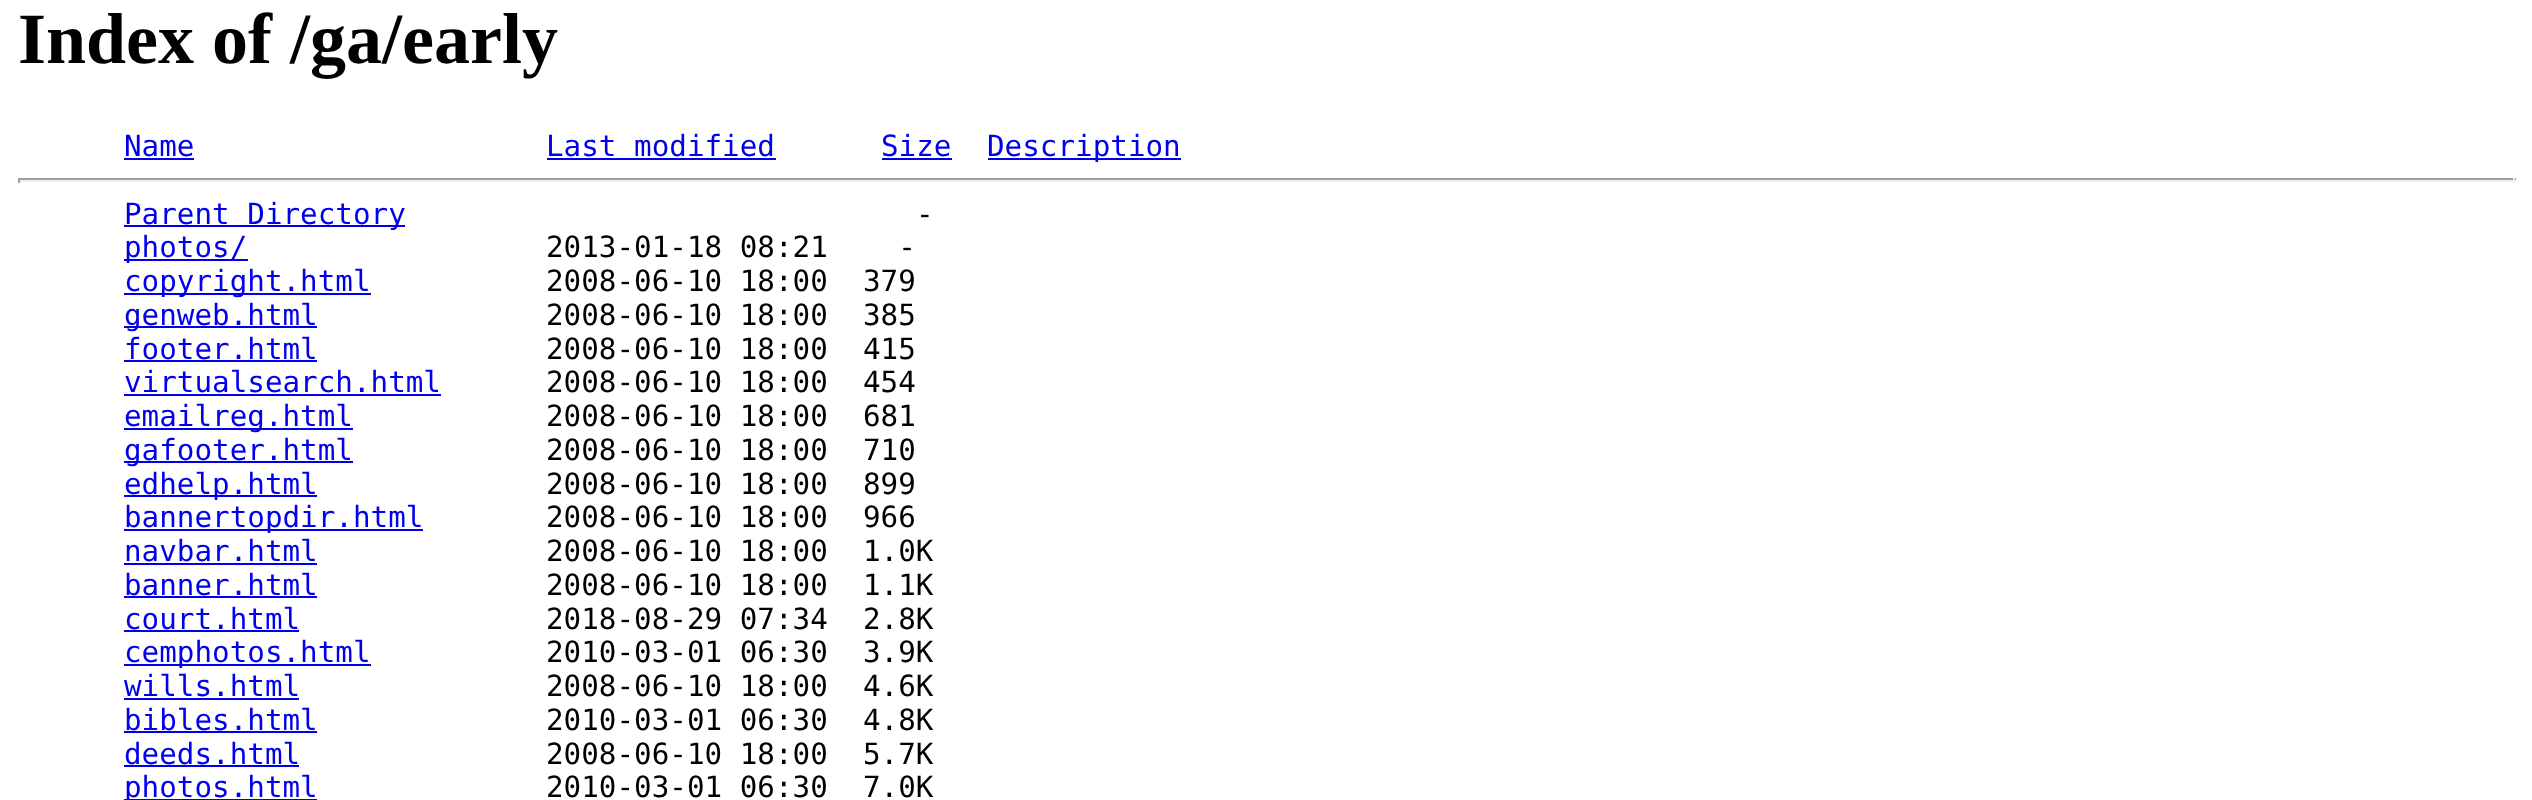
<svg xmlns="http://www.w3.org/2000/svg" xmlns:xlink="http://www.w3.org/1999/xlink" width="2532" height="800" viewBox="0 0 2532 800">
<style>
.cls-1{font:bold 72px Liberation Serif;fill:#000000}
.cls-2{font:29.25px DejaVu Sans Mono;fill:#0000ee}
.cls-3{font:29.25px DejaVu Sans Mono;fill:#000000}
</style>
<rect width="100%" height="100%" fill="#ffffff"/>
<rect fill="#0000ee" x="124" y="158" width="70" height="2"/>
<rect fill="#0000ee" x="547" y="158" width="229" height="2"/>
<rect fill="#0000ee" x="882" y="158" width="70" height="2"/>
<rect fill="#0000ee" x="988" y="158" width="193" height="2"/>
<rect fill="#9f9f9f" x="18" y="178" width="2498" height="2"/>
<rect fill="#eeeeee" x="2513" y="178" width="2" height="5"/>
<rect fill="#eeeeee" x="18" y="180" width="2498" height="2"/>
<rect fill="#9f9f9f" x="18" y="178" width="2" height="5"/>
<rect fill="#0000ee" x="124" y="225" width="281" height="2"/>
<rect fill="#0000ee" x="124" y="259" width="124" height="2"/>
<rect fill="#0000ee" x="124" y="293" width="247" height="2"/>
<rect fill="#0000ee" x="124" y="326" width="193" height="2"/>
<rect fill="#0000ee" x="124" y="360" width="193" height="2"/>
<rect fill="#0000ee" x="124" y="394" width="317" height="2"/>
<rect fill="#0000ee" x="124" y="428" width="229" height="2"/>
<rect fill="#0000ee" x="124" y="461" width="229" height="2"/>
<rect fill="#0000ee" x="124" y="495" width="193" height="2"/>
<rect fill="#0000ee" x="124" y="529" width="299" height="2"/>
<rect fill="#0000ee" x="124" y="563" width="193" height="2"/>
<rect fill="#0000ee" x="124" y="596" width="193" height="2"/>
<rect fill="#0000ee" x="124" y="630" width="175" height="2"/>
<rect fill="#0000ee" x="124" y="664" width="247" height="2"/>
<rect fill="#0000ee" x="124" y="698" width="175" height="2"/>
<rect fill="#0000ee" x="124" y="731" width="193" height="2"/>
<rect fill="#0000ee" x="124" y="765" width="175" height="2"/>
<rect fill="#0000ee" x="124" y="799" width="193" height="1"/>
<text class="cls-1" x="18" y="63">Index of /ga/early</text>
<text class="cls-2" x="124" y="156">Name</text>
<text class="cls-2" x="546" y="156">Last modified</text>
<text class="cls-2" x="881" y="156">Size</text>
<text class="cls-2" x="987" y="156">Description</text>
<text class="cls-2" x="124" y="224">Parent Directory</text>
<text class="cls-3" x="916" y="224">-</text>
<text class="cls-2" x="124" y="257">photos/</text>
<text class="cls-3" xml:space="preserve" x="546" y="257">2013-01-18 08:21    -</text>
<text class="cls-2" x="124" y="291">copyright.html</text>
<text class="cls-3" xml:space="preserve" x="546" y="291">2008-06-10 18:00  379</text>
<text class="cls-2" x="124" y="325">genweb.html</text>
<text class="cls-3" xml:space="preserve" x="546" y="325">2008-06-10 18:00  385</text>
<text class="cls-2" x="124" y="359">footer.html</text>
<text class="cls-3" xml:space="preserve" x="546" y="359">2008-06-10 18:00  415</text>
<text class="cls-2" x="124" y="392">virtualsearch.html</text>
<text class="cls-3" xml:space="preserve" x="546" y="392">2008-06-10 18:00  454</text>
<text class="cls-2" x="124" y="426">emailreg.html</text>
<text class="cls-3" xml:space="preserve" x="546" y="426">2008-06-10 18:00  681</text>
<text class="cls-2" x="124" y="460">gafooter.html</text>
<text class="cls-3" xml:space="preserve" x="546" y="460">2008-06-10 18:00  710</text>
<text class="cls-2" x="124" y="494">edhelp.html</text>
<text class="cls-3" xml:space="preserve" x="546" y="494">2008-06-10 18:00  899</text>
<text class="cls-2" x="124" y="527">bannertopdir.html</text>
<text class="cls-3" xml:space="preserve" x="546" y="527">2008-06-10 18:00  966</text>
<text class="cls-2" x="124" y="561">navbar.html</text>
<text class="cls-3" xml:space="preserve" x="546" y="561">2008-06-10 18:00  1.0K</text>
<text class="cls-2" x="124" y="595">banner.html</text>
<text class="cls-3" xml:space="preserve" x="546" y="595">2008-06-10 18:00  1.1K</text>
<text class="cls-2" x="124" y="629">court.html</text>
<text class="cls-3" xml:space="preserve" x="546" y="629">2018-08-29 07:34  2.8K</text>
<text class="cls-2" x="124" y="662">cemphotos.html</text>
<text class="cls-3" xml:space="preserve" x="546" y="662">2010-03-01 06:30  3.9K</text>
<text class="cls-2" x="124" y="696">wills.html</text>
<text class="cls-3" xml:space="preserve" x="546" y="696">2008-06-10 18:00  4.6K</text>
<text class="cls-2" x="124" y="730">bibles.html</text>
<text class="cls-3" xml:space="preserve" x="546" y="730">2010-03-01 06:30  4.8K</text>
<text class="cls-2" x="124" y="764">deeds.html</text>
<text class="cls-3" xml:space="preserve" x="546" y="764">2008-06-10 18:00  5.7K</text>
<text class="cls-2" x="124" y="797">photos.html</text>
<text class="cls-3" xml:space="preserve" x="546" y="797">2010-03-01 06:30  7.0K</text>
</svg>
